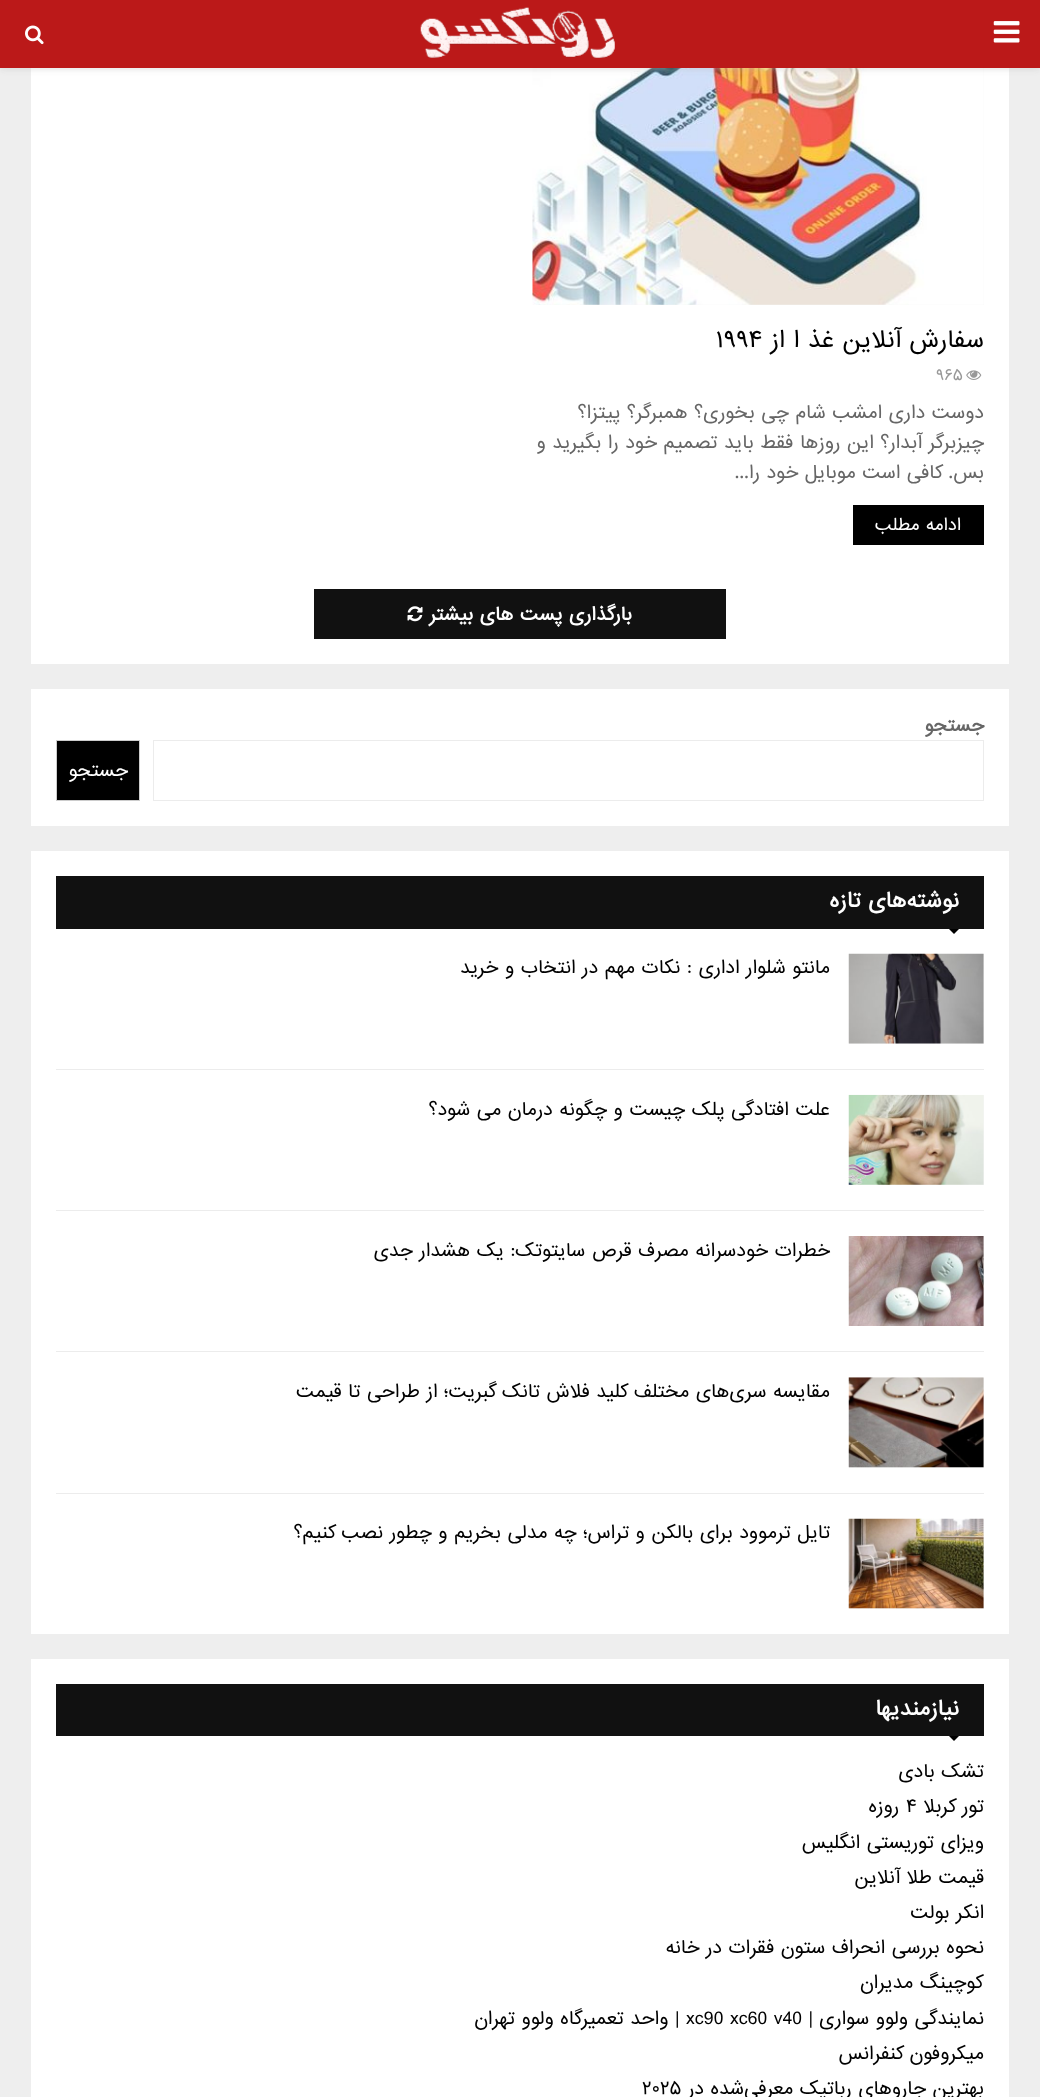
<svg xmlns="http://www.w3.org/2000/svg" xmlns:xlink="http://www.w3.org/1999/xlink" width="1040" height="2097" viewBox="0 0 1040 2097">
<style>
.cls-1{font:22.5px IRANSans;direction:rtl;fill:#000000}
.cls-2{font:22.5px IRANSans;fill:#000000}
.cls-3{font:15px IRANSans;fill:#999999}
.cls-4{font:17.5px IRANSans;direction:rtl;fill:#666666}
.cls-5{font:16.25px IRANSans;direction:rtl;fill:#ffffff}
.cls-6{font:bold 17.5px IRANSans;direction:rtl;fill:#ffffff}
.cls-7{font:bold 17.5px IRANSans;direction:rtl;fill:#666666}
.cls-8{font:17.5px IRANSans;direction:rtl;fill:#ffffff}
.cls-9{font:bold 20px IRANSans;direction:rtl;fill:#ffffff}
.cls-10{font:17.5px IRANSans;direction:rtl;fill:#000000}
.cls-11{font:17.5px IRANSans;fill:#000000}
</style>
<rect width="100%" height="100%" fill="#eeeeee"/>
<rect fill="#ffffff" x="31" y="68" width="978" height="596"/>
<rect fill="#f5f5f5" x="533" y="68" width="451" height="237"/>
<image xlink:href="image3.png" x="532" y="68" width="452" height="237"/>
<rect fill="#bebebe" fill-opacity="0.46" filter="blur(3px)" x="0" y="1" width="1040" height="68"/>
<rect fill="#bb1919" x="0" y="0" width="1040" height="68"/>
<image xlink:href="image0.png" x="993" y="21" width="27" height="22"/>
<image xlink:href="image1.png" x="420" y="7" width="195" height="51"/>
<image xlink:href="image2.png" x="25" y="25" width="19" height="20"/>
<image xlink:href="image4.png" x="966" y="370" width="16" height="10"/>
<rect fill="#000000" x="853" y="505" width="131" height="40"/>
<rect fill="#111111" x="314" y="589" width="412" height="50"/>
<image xlink:href="image5.png" x="407" y="606" width="16" height="16"/>
<rect fill="#ffffff" x="31" y="689" width="978" height="137"/>
<rect fill="none" stroke="#ececec" x="153.5" y="740.5" width="830" height="60"/>
<rect fill="#000000" stroke="#cccccc" x="56.5" y="740.5" width="83" height="60"/>
<rect fill="#ffffff" x="31" y="851" width="978" height="783"/>
<rect fill="#111111" x="56" y="876" width="928" height="53"/>
<path fill="#000000" d="M949 929H959L954 934Z"/>
<rect fill="#ececec" x="56" y="1069" width="928" height="1"/>
<rect fill="#f5f5f5" x="849" y="954" width="135" height="90"/>
<image xlink:href="image6.png" x="848" y="953" width="136" height="91"/>
<rect fill="#ececec" x="56" y="1210" width="928" height="1"/>
<rect fill="#f5f5f5" x="849" y="1095" width="135" height="90"/>
<image xlink:href="image7.png" x="848" y="1094" width="136" height="91"/>
<rect fill="#ececec" x="56" y="1351" width="928" height="1"/>
<rect fill="#f5f5f5" x="983" y="1236" width="1" height="90"/>
<image xlink:href="image8.png" x="848" y="1236" width="136" height="90"/>
<rect fill="#ececec" x="56" y="1493" width="928" height="1"/>
<rect fill="#f5f5f5" x="849" y="1378" width="135" height="90"/>
<image xlink:href="image9.png" x="848" y="1377" width="136" height="91"/>
<rect fill="#f5f5f5" x="849" y="1519" width="135" height="90"/>
<image xlink:href="image10.png" x="848" y="1518" width="136" height="91"/>
<rect fill="#ffffff" x="31" y="1659" width="978" height="438"/>
<rect fill="#111111" x="56" y="1684" width="928" height="52"/>
<path fill="#000000" d="M949 1736H959L954 1741Z"/>
<text class="cls-1" x="984" y="347">سفارش آنلاین غذ ا از</text>
<text class="cls-2" x="716" y="347">۱۹۹۴</text>
<text class="cls-3" x="936" y="380">۹۶۵</text>
<text class="cls-4"><tspan x="984" y="418">دوست داری امشب شام چی بخوری؟ همبرگر؟ پیتزا؟</tspan><tspan x="984" y="448">چیزبرگر آبدار؟ این روزها فقط باید تصمیم خود را بگیرید و</tspan><tspan x="984" y="478">بس. کافی است موبایل خود را...</tspan></text>
<text class="cls-5" x="961" y="530">ادامه مطلب</text>
<text class="cls-6" x="632" y="620">بارگذاری پست های بیشتر</text>
<text class="cls-7" x="984" y="731">جستجو</text>
<text class="cls-8" x="128" y="776">جستجو</text>
<text class="cls-9" x="959" y="907">نوشته‌های تازه</text>
<text class="cls-10" x="830" y="973">مانتو شلوار اداری : نکات مهم در انتخاب و خرید</text>
<text class="cls-10" x="830" y="1115">علت افتادگی پلک چیست و چگونه درمان می شود؟</text>
<text class="cls-10" x="830" y="1256">خطرات خودسرانه مصرف قرص سایتوتک: یک هشدار جدی</text>
<text class="cls-10" x="830" y="1397">مقایسه سری‌های مختلف کلید فلاش تانک گبریت؛ از طراحی تا قیمت</text>
<text class="cls-10" x="830" y="1538">تایل ترموود برای بالکن و تراس؛ چه مدلی بخریم و چطور نصب کنیم؟</text>
<text class="cls-9" x="959" y="1715">نیازمندیها</text>
<text class="cls-10" x="984" y="1777">تشک بادی</text>
<text class="cls-10" x="984" y="1812">تور کربلا</text>
<text class="cls-11" x="906" y="1812">۴</text>
<text class="cls-10" x="899" y="1812">روزه</text>
<text class="cls-10" x="984" y="1848">ویزای توریستی انگلیس</text>
<text class="cls-10" x="984" y="1883">قیمت طلا آنلاین</text>
<text class="cls-10" x="984" y="1918">انکر بولت</text>
<text class="cls-10" x="984" y="1953">نحوه بررسی انحراف ستون فقرات در خانه</text>
<text class="cls-10" x="984" y="1988">کوچینگ مدیران</text>
<text class="cls-10" x="984" y="2024">نمایندگی ولوو سواری |</text>
<text class="cls-11" x="686" y="2024">xc90 xc60 v40</text>
<text class="cls-10" x="679" y="2024">| واحد تعمیرگاه ولوو تهران</text>
<text class="cls-10" x="984" y="2059">میکروفون کنفرانس</text>
<text class="cls-10" x="984" y="2094">بهترین جاروهای رباتیک معرفی‌شده در</text>
<text class="cls-11" x="642" y="2094">۲۰۲۵</text>
</svg>
